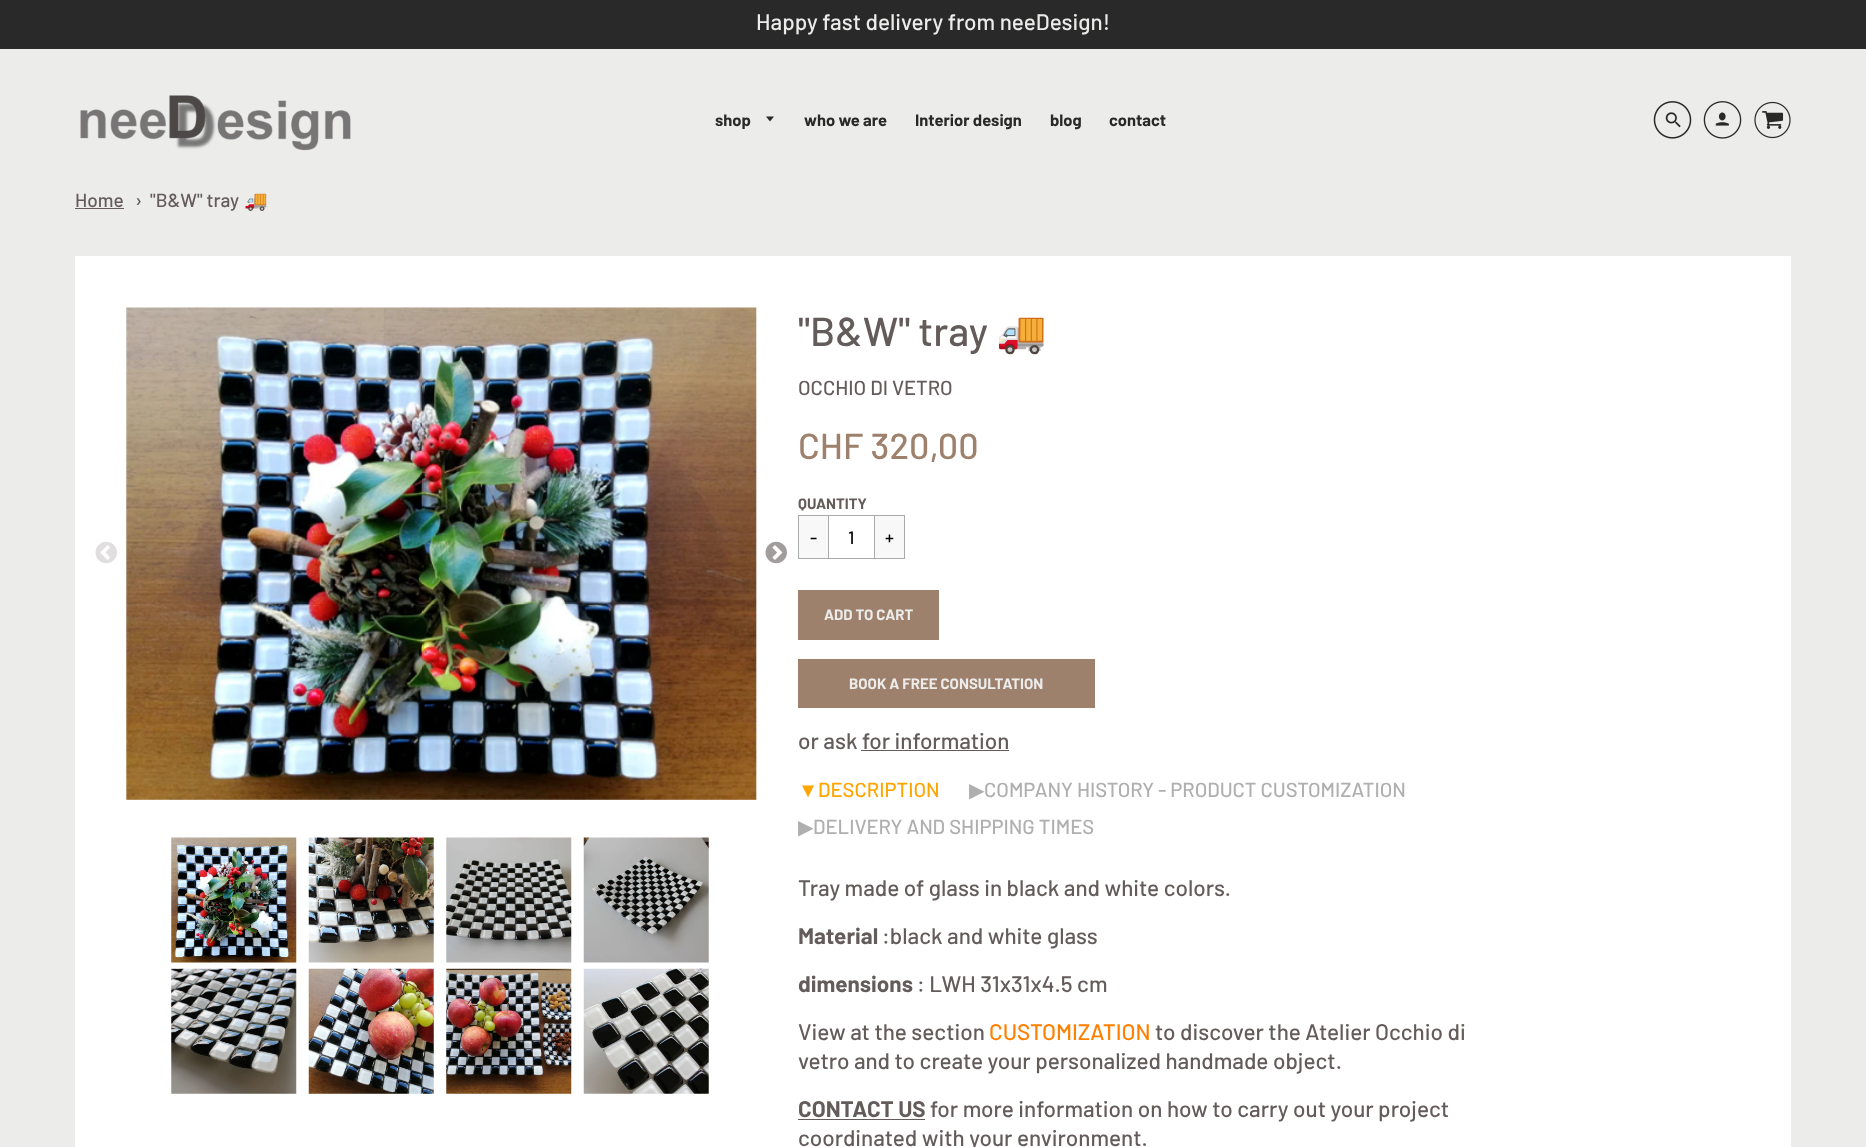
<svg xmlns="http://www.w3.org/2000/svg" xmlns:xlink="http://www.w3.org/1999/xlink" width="1866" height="1147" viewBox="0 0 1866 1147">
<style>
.cls-1{font:500 22.5px Barlow;fill:#ececeb}
.cls-2{font:bold 16.5px Barlow;fill:#292929}
.cls-3{font:500 19px Barlow;fill:#645b5b}
.cls-4{font:19px Noto Color Emoji;fill:#645b5b}
.cls-5{font:500 40.5px Barlow;fill:#645b5b}
.cls-6{font:40.5px Noto Color Emoji;fill:#645b5b}
.cls-7{font:500 20.25px Barlow;fill:#645b5b}
.cls-8{font:500 36px Barlow;fill:#9e816c}
.cls-9{font:bold 15px Barlow;fill:#645b5b}
.cls-10{font:500 18px Barlow;fill:#000000}
.cls-11{font:bold 15px Barlow;fill:#ececeb}
.cls-12{font:500 22.5px Barlow;fill:#645b5b}
.cls-13{font:20.25px Liberation Sans;fill:#ffa500}
.cls-14{font:500 20.25px Barlow;fill:#ffa500}
.cls-15{font:20.25px DejaVu Sans;fill:#afafaf}
.cls-16{font:500 20.25px Barlow;fill:#afafaf}
.cls-17{font:bold 22.5px Barlow;fill:#645b5b}
.cls-18{font:500 22.5px Barlow;fill:#ff8000}
</style>
<rect width="100%" height="100%" fill="#ececeb"/>
<rect fill="#292929" x="0" y="0" width="1866" height="49"/>
<image xlink:href="image0.png" x="80" y="95" width="271" height="56"/>
<path fill="#292929" d="M766 116.5L770 121.5L774 116.5Z"/>
<image xlink:href="image1.png" x="1653" y="101" width="39" height="38"/>
<image xlink:href="image2.png" x="1703" y="101" width="39" height="38"/>
<image xlink:href="image3.png" x="1754" y="101" width="37" height="38"/>
<rect fill="#645b5b" x="75" y="208" width="49" height="1"/>
<rect fill="#ffffff" x="75" y="256" width="1716" height="891"/>
<image xlink:href="image4.png" x="95" y="541" width="22" height="23"/>
<image xlink:href="image5.png" x="126" y="307" width="631" height="493"/>
<image xlink:href="image6.png" x="765" y="541" width="22" height="23"/>
<image xlink:href="image7.png" x="171" y="837" width="126" height="126"/>
<image xlink:href="image8.png" x="308" y="837" width="126" height="126"/>
<image xlink:href="image9.png" x="446" y="837" width="126" height="126"/>
<image xlink:href="image10.png" x="583" y="837" width="126" height="126"/>
<image xlink:href="image11.png" x="171" y="968" width="126" height="126"/>
<image xlink:href="image12.png" x="308" y="968" width="126" height="126"/>
<image xlink:href="image13.png" x="446" y="968" width="126" height="126"/>
<image xlink:href="image14.png" x="583" y="968" width="126" height="126"/>
<rect fill="#aaaaaa" x="826" y="515" width="50" height="1"/>
<rect fill="#aaaaaa" x="826" y="558" width="50" height="1"/>
<rect fill="#f8f8f8" stroke="#aaaaaa" x="798.5" y="515.5" width="30" height="43"/>
<rect fill="#f8f8f8" stroke="#aaaaaa" x="874.5" y="515.5" width="30" height="43"/>
<rect fill="#9e816c" x="798" y="590" width="141" height="50"/>
<rect fill="#9e816c" x="798" y="659" width="297" height="49"/>
<rect fill="#645b5b" x="861" y="750" width="148" height="1"/>
<rect fill="#645b5b" x="798" y="1119" width="127" height="1"/>
<text class="cls-1" x="756" y="30">Happy fast delivery from neeDesign!</text>
<text class="cls-2" x="715" y="126">shop</text>
<text class="cls-2" x="804" y="126">who we are</text>
<text class="cls-2" x="915" y="126">Interior design</text>
<text class="cls-2" x="1050" y="126">blog</text>
<text class="cls-2" x="1109" y="126">contact</text>
<text class="cls-3" x="75" y="207">Home</text>
<text class="cls-3" x="135" y="207">›</text>
<text class="cls-3" x="150" y="207">"B&amp;W" tray</text>
<text class="cls-4" x="244" y="207">🚚</text>
<text class="cls-5" x="798" y="346">"B&amp;W" tray</text>
<text class="cls-6" x="996" y="346">🚚</text>
<text class="cls-7" x="798" y="395">OCCHIO DI VETRO</text>
<text class="cls-8" x="798" y="459">CHF 320,00</text>
<text class="cls-9" x="798" y="509">QUANTITY</text>
<text class="cls-10" x="810" y="544">-</text>
<text class="cls-10" x="848" y="544">1</text>
<text class="cls-10" x="885" y="544">+</text>
<text class="cls-11" x="824" y="620">ADD TO CART</text>
<text class="cls-11" x="849" y="689">BOOK A FREE CONSULTATION</text>
<text class="cls-12" x="798" y="749">or ask for information</text>
<text class="cls-13" x="798" y="797">▼</text>
<text class="cls-14" x="818" y="797">DESCRIPTION</text>
<text class="cls-15" x="969" y="797">▶</text>
<text class="cls-16" x="984" y="797">COMPANY HISTORY - PRODUCT CUSTOMIZATION</text>
<text class="cls-15" x="798" y="834">▶</text>
<text class="cls-16" x="813" y="834">DELIVERY AND SHIPPING TIMES</text>
<text class="cls-12" x="798" y="896">Tray made of glass in black and white colors.</text>
<text class="cls-17" x="798" y="944">Material</text>
<text class="cls-12" x="882" y="944">:black and white glass</text>
<text class="cls-17" x="798" y="992">dimensions</text>
<text class="cls-12" x="917" y="992">: LWH 31x31x4.5 cm</text>
<text class="cls-12" x="798" y="1040">View at the section</text>
<text class="cls-18" x="989" y="1040">CUSTOMIZATION</text>
<text class="cls-12" x="1155" y="1040">to discover the Atelier Occhio di</text>
<text class="cls-12" x="798" y="1069">vetro and to create your personalized handmade object.</text>
<text class="cls-17" x="798" y="1117">CONTACT US</text>
<text class="cls-12" x="930" y="1117">for more information on how to carry out your project</text>
<text class="cls-12" x="798" y="1146">coordinated with your environment.</text>
</svg>
